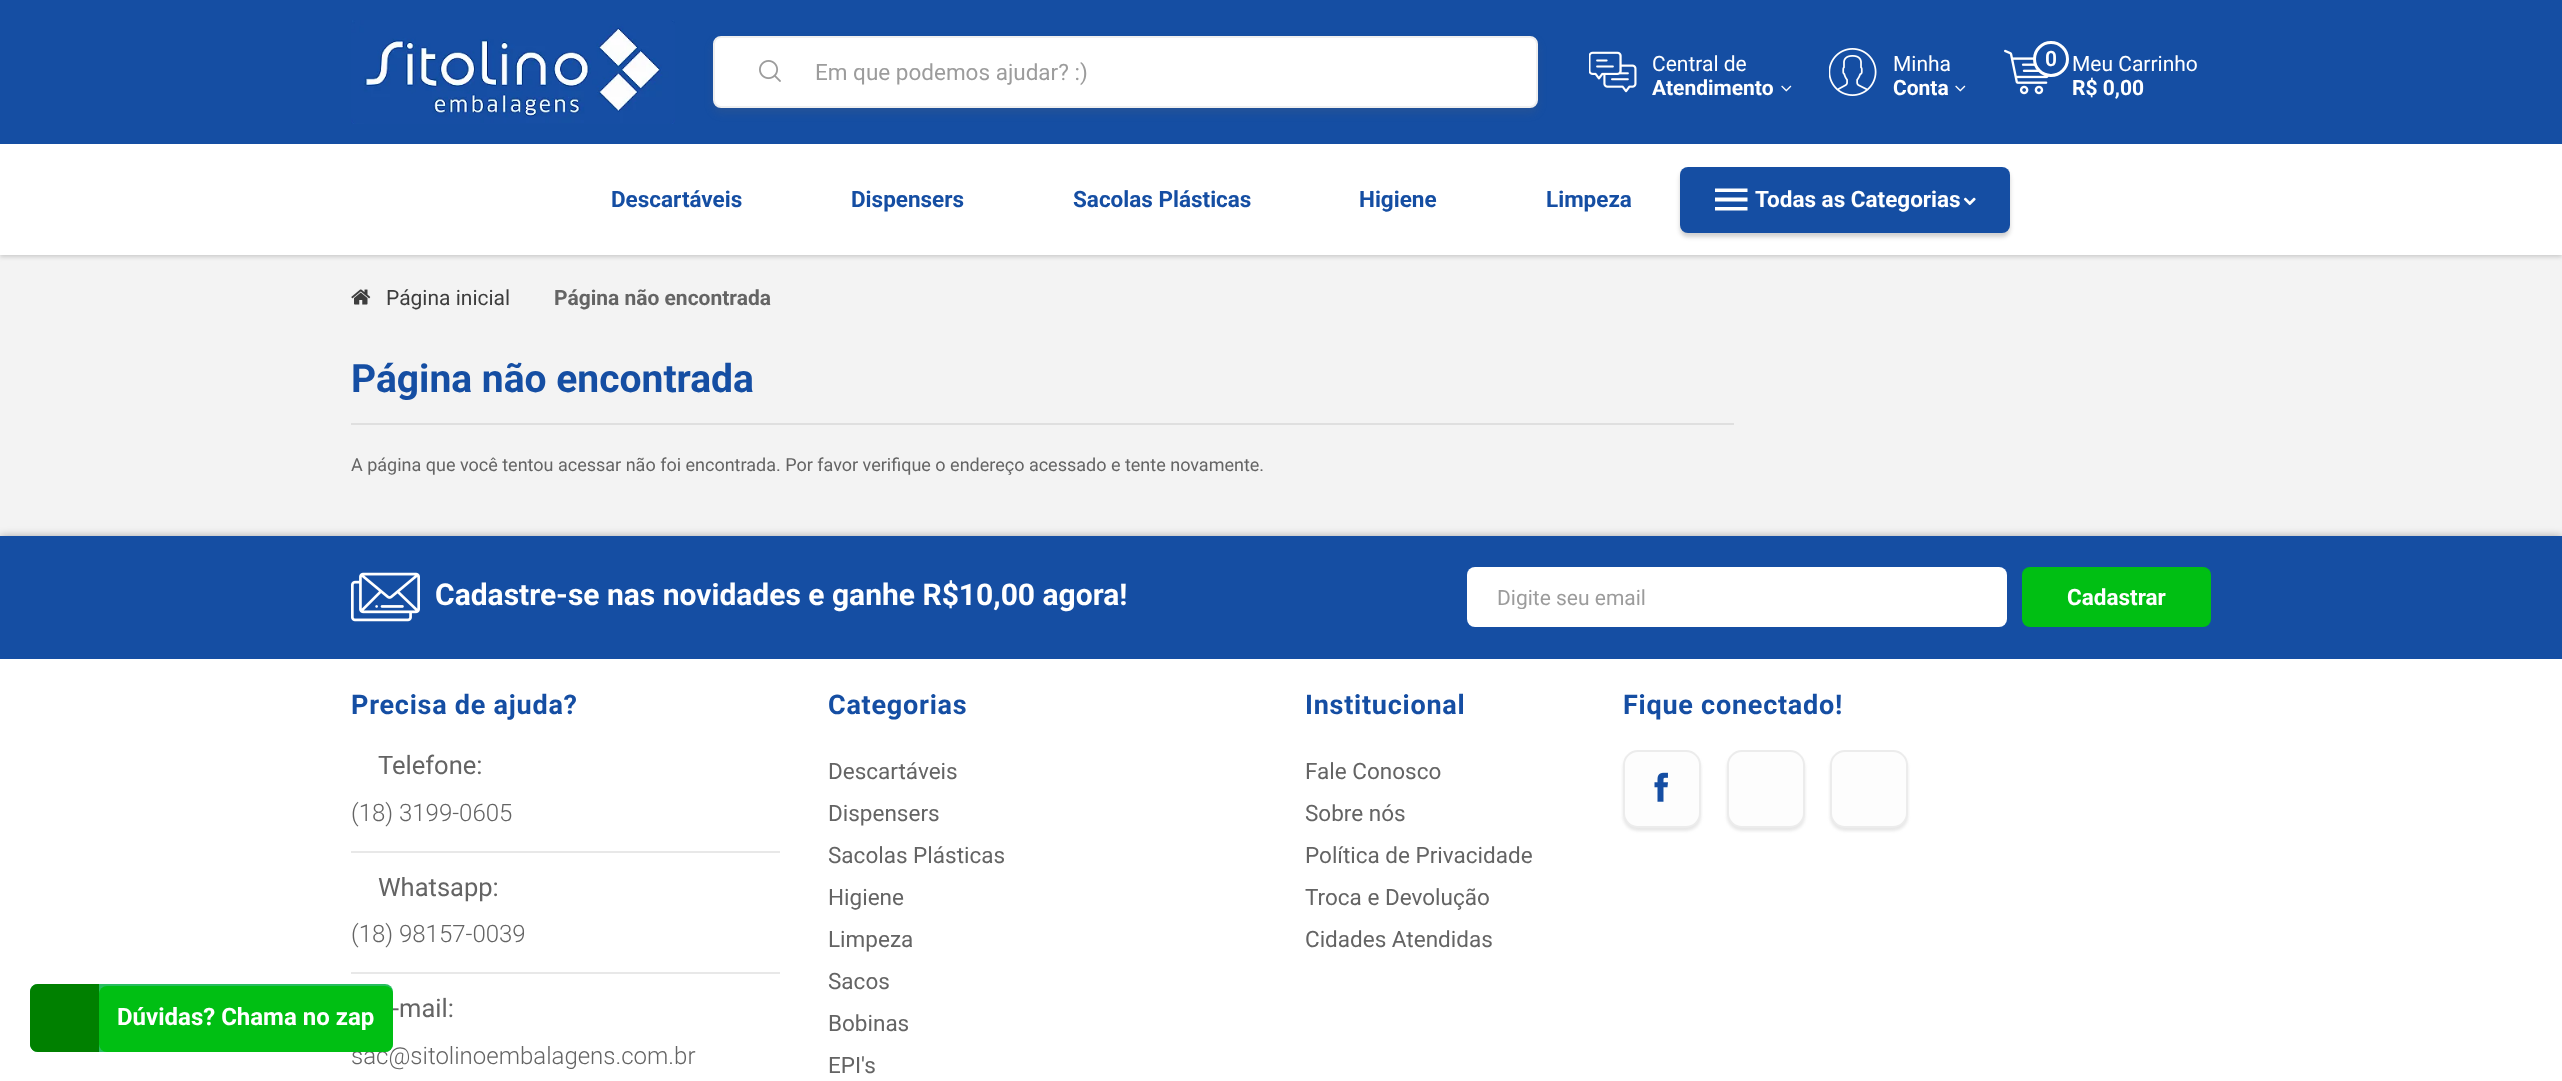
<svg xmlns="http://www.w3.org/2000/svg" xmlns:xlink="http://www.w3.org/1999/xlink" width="2562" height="1081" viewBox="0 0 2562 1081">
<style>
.cls-1{font:22.5px Roboto;fill:#9c9c9c}
.cls-2{font:21px Roboto;fill:#ffffff}
.cls-3{font:bold 21px Roboto;fill:#ffffff}
.cls-4{font:600 21px Roboto;fill:#ffffff}
.cls-5{font:bold 22.5px Roboto;fill:#154ea3}
.cls-6{font:bold 22.5px Roboto;fill:#ffffff}
.cls-7{font:21px Roboto;fill:#3d3d3d}
.cls-8{font:bold 21px Roboto;fill:#646464}
.cls-9{font:bold 39px Roboto;fill:#154ea3}
.cls-10{font:18px Roboto;fill:#646464}
.cls-11{font:bold 30px Roboto;fill:#ffffff}
.cls-12{font:21px Roboto;fill:#9c9c9c}
.cls-13{font:bold 27px Roboto;letter-spacing:0.75px;fill:#154ea3}
.cls-14{font:25.5px Roboto;fill:#646464}
.cls-15{font:300 24px Roboto;fill:#646464}
.cls-16{font:bold 24px Roboto;fill:#ffffff}
.cls-17{font:22.5px Roboto;fill:#646464}
</style>
<defs>
<clipPath id="clip1"><rect x="1715" y="183" width="33" height="33"/></clipPath>
<clipPath id="clip2"><rect x="1497" y="585" width="495" height="24"/></clipPath>
</defs>
<rect width="100%" height="100%" fill="#f3f3f3"/>
<rect fill="#8e8e8e" fill-opacity="0.38" filter="blur(2px)" x="0" y="2" width="2562" height="255"/>
<rect fill="#154ea3" x="0" y="0" width="2562" height="144"/>
<image xlink:href="image0.png" x="351" y="20" width="324" height="104"/>
<rect fill="#646464" fill-opacity="0.19" filter="blur(4.5px)" x="713" y="41" width="825" height="72" rx="8"/>
<rect fill="#ffffff" stroke="#efefef" stroke-width="2" x="714" y="37" width="823" height="70" rx="7"/>
<image xlink:href="image1.png" x="759" y="60" width="22" height="22"/>
<image xlink:href="image2.png" x="1589" y="51" width="48" height="42"/>
<image xlink:href="image3.png" x="1781" y="85" width="11" height="7"/>
<image xlink:href="image4.png" x="1829" y="48" width="48" height="48"/>
<image xlink:href="image3.png" x="1955" y="85" width="11" height="7"/>
<image xlink:href="image5.png" x="2004" y="49" width="45" height="46"/>
<circle fill="#154ea3" stroke="#ffffff" stroke-width="3" cx="2051" cy="59" r="16.5"/>
<rect fill="#ffffff" x="0" y="144" width="2562" height="111"/>
<rect fill="#141414" fill-opacity="0.2" filter="blur(2px)" x="1680" y="171" width="330" height="66" rx="8"/>
<rect fill="#154ea3" x="1680" y="167" width="330" height="66" rx="8"/>
<g clip-path="url(#clip1)">
<path fill="#ffffff" d="M1714.5 210.5H1747.5V207H1714.5ZM1714.5 201.5H1747.5V197.5H1714.5ZM1714.5 188.5V192H1747.5V188.5Z"/>
</g>
<image xlink:href="image6.png" x="1963" y="197" width="13" height="9"/>
<image xlink:href="image7.png" x="351" y="289" width="20" height="16"/>
<rect fill="#dfdfdf" x="351" y="423" width="1383" height="2"/>
<rect fill="#000000" fill-opacity="0.3" filter="blur(4px)" x="0" y="536" width="2562" height="123"/>
<rect fill="#154ea3" x="0" y="536" width="2562" height="123"/>
<image xlink:href="image8.png" x="351" y="572" width="69" height="50"/>
<rect fill="#ffffff" x="1467" y="567" width="540" height="60" rx="8"/>
<rect fill="#00bf13" x="2022" y="567" width="189" height="60" rx="8"/>
<rect fill="#ffffff" x="0" y="659" width="2562" height="422"/>
<rect fill="#e8e8e8" x="351" y="851" width="429" height="2"/>
<rect fill="#e8e8e8" x="351" y="972" width="429" height="2"/>
<rect fill="#a0a0a0" fill-opacity="0.25" filter="blur(1.5px)" x="1623" y="753" width="78" height="78" rx="15"/>
<rect fill="#fdfdfd" stroke="#ececec" stroke-width="2" x="1624" y="751" width="76" height="76" rx="14"/>
<image xlink:href="image9.png" x="1654" y="772" width="14" height="30"/>
<rect fill="#a0a0a0" fill-opacity="0.25" filter="blur(1.5px)" x="1727" y="753" width="78" height="78" rx="15"/>
<rect fill="#fdfdfd" stroke="#ececec" stroke-width="2" x="1728" y="751" width="76" height="76" rx="14"/>
<rect fill="#a0a0a0" fill-opacity="0.25" filter="blur(1.5px)" x="1830" y="753" width="78" height="78" rx="15"/>
<rect fill="#fdfdfd" stroke="#ececec" stroke-width="2" x="1831" y="751" width="76" height="76" rx="14"/>
<text class="cls-1" x="815" y="80">Em que podemos ajudar? :)</text>
<text class="cls-2" x="1652" y="71">Central de</text>
<text class="cls-3" x="1652" y="95">Atendimento</text>
<text class="cls-2" x="1893" y="71">Minha</text>
<text class="cls-3" x="1893" y="95">Conta</text>
<text class="cls-4" x="2045" y="66">0</text>
<text class="cls-2" x="2072" y="71">Meu Carrinho</text>
<text class="cls-3" x="2072" y="95">R$ 0,00</text>
<text class="cls-5" x="611" y="207">Descartáveis</text>
<text class="cls-5" x="851" y="207">Dispensers</text>
<text class="cls-5" x="1073" y="207">Sacolas Plásticas</text>
<text class="cls-5" x="1359" y="207">Higiene</text>
<text class="cls-5" x="1546" y="207">Limpeza</text>
<text class="cls-6" x="1755" y="207">Todas as Categorias</text>
<text class="cls-7" x="386" y="305">Página inicial</text>
<text class="cls-8" x="554" y="305">Página não encontrada</text>
<text class="cls-9" x="351" y="392">Página não encontrada</text>
<text class="cls-10" x="351" y="471">A página que você tentou acessar não foi encontrada. Por favor verifique o endereço acessado e tente novamente.</text>
<text class="cls-11" x="435" y="605">Cadastre-se nas novidades e ganhe R$10,00 agora!</text>
<g clip-path="url(#clip2)">
<text class="cls-12" x="1497" y="605">Digite seu email</text>
</g>
<text class="cls-6" x="2067" y="605">Cadastrar</text>
<text class="cls-13" x="351" y="714">Precisa de ajuda?</text>
<text class="cls-14" x="378" y="774">Telefone:</text>
<text class="cls-15" x="351" y="821">(18) 3199-0605</text>
<text class="cls-14" x="378" y="896">Whatsapp:</text>
<text class="cls-15" x="351" y="942">(18) 98157-0039</text>
<text class="cls-14" x="392" y="1017">-mail:</text>
<text class="cls-15" x="351" y="1064">sac@sitolinoembalagens.com.br</text>
<rect fill="#28bd60" x="30" y="984" width="363" height="68" rx="8"/>
<rect fill="#00bf13" x="99" y="986" width="294" height="66" rx="8"/>
<text class="cls-16" x="117" y="1025">Dúvidas? Chama no zap</text>
<path fill="#008000" d="M38 984H99V1052H38C33.5 1052 30 1048.5 30 1044V992C30 987.5 33.5 984 38 984Z"/>
<text class="cls-13" x="828" y="714">Categorias</text>
<text class="cls-17"><tspan x="828" y="779">Descartáveis</tspan><tspan x="828" y="821">Dispensers</tspan><tspan x="828" y="863">Sacolas Plásticas</tspan><tspan x="828" y="905">Higiene</tspan><tspan x="828" y="947">Limpeza</tspan><tspan x="828" y="989">Sacos</tspan><tspan x="828" y="1031">Bobinas</tspan><tspan x="828" y="1073">EPI's</tspan></text>
<text class="cls-13" x="1305" y="714">Institucional</text>
<text class="cls-17"><tspan x="1305" y="779">Fale Conosco</tspan><tspan x="1305" y="821">Sobre nós</tspan><tspan x="1305" y="863">Política de Privacidade</tspan><tspan x="1305" y="905">Troca e Devolução</tspan><tspan x="1305" y="947">Cidades Atendidas</tspan></text>
<text class="cls-13" x="1623" y="714">Fique conectado!</text>
</svg>
